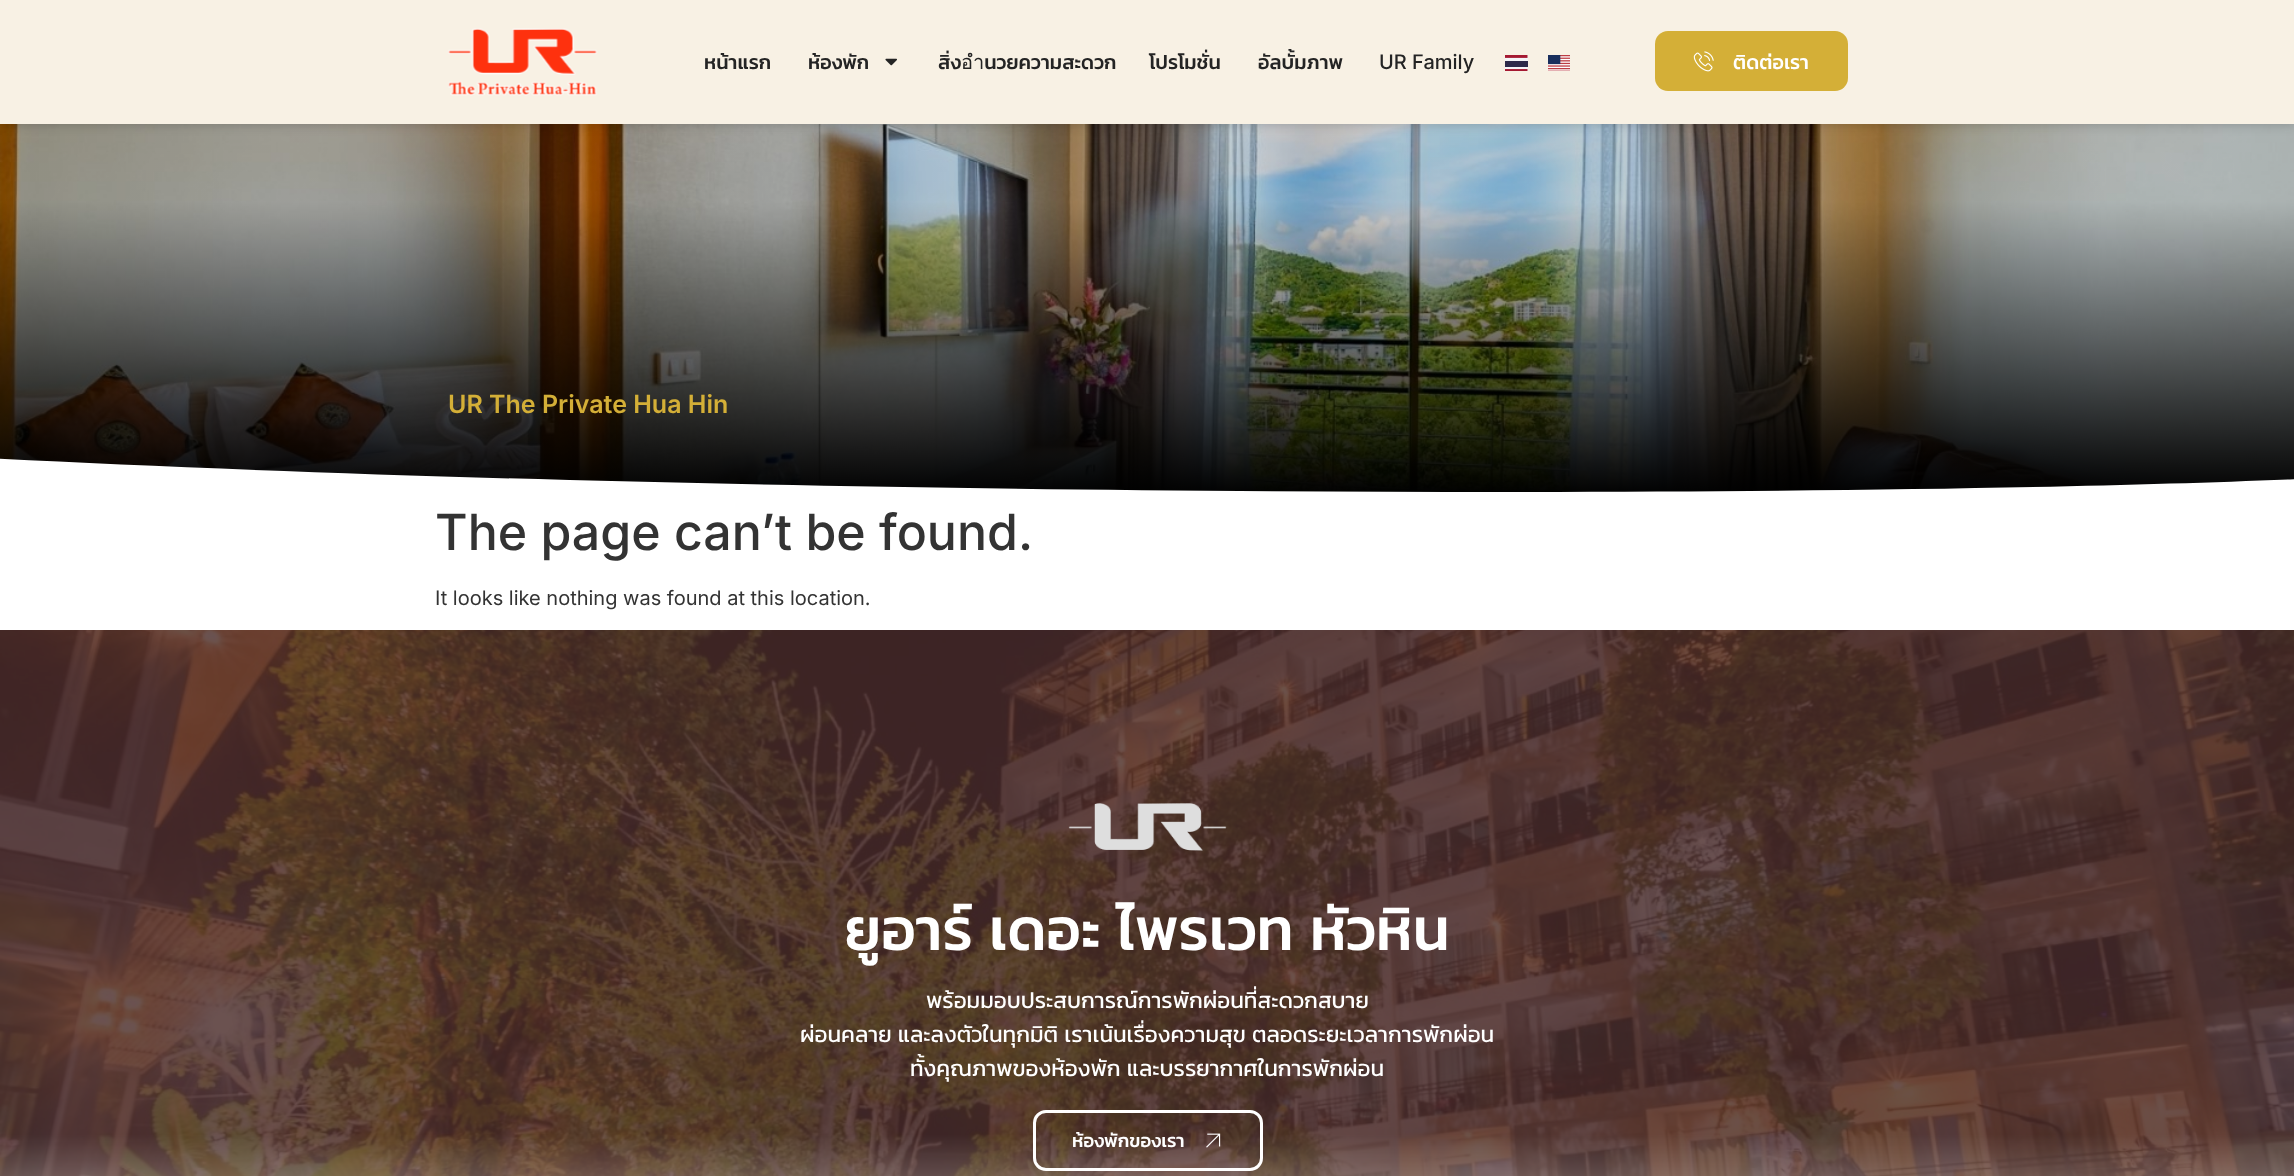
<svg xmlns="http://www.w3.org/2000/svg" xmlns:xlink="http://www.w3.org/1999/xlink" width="2294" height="1176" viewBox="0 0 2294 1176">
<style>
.cls-1{font:500 20px Kanit;fill:#242424}
.cls-2{font:500 20px Inter;fill:#242424}
.cls-3{font:500 20px Kanit;fill:#ffffff}
.cls-4{font:600 25px Inter;fill:#d4af37}
.cls-5{font:500 50px Inter;fill:#333333}
.cls-6{font:20px Inter;fill:#333333}
.cls-7{font:500 60px Kanit;fill:#ffffff}
.cls-8{font:22.5px Kanit;fill:#ffffff}
.cls-9{font:500 18.75px Kanit;fill:#ffffff}
</style>
<defs>
<linearGradient id="g1" gradientUnits="userSpaceOnUse" x1="1148" y1="124" x2="1148" y2="493"><stop offset="0.21" stop-color="#000000" stop-opacity="0.18"/><stop offset="1" stop-color="#000000" stop-opacity="0.99"/></linearGradient>
</defs>
<rect width="100%" height="100%" fill="#ffffff"/>
<image xlink:href="image5.png" x="0" y="124" width="2294" height="368"/>
<rect fill="url(#g1)" x="0" y="124" width="2294" height="368"/>
<rect fill="#000000" fill-opacity="0.2" filter="blur(6px)" x="0" y="0" width="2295" height="124"/>
<rect fill="#f8f1e4" x="0" y="0" width="2294" height="124"/>
<image xlink:href="image0.png" x="448" y="28" width="150" height="68"/>
<image xlink:href="image1.png" x="885" y="58" width="12" height="8"/>
<image xlink:href="image2.png" x="1505" y="55" width="23" height="16"/>
<image xlink:href="image3.png" x="1548" y="55" width="22" height="16"/>
<rect fill="#d4af37" x="1655" y="31" width="193" height="60" rx="13"/>
<image xlink:href="image4.png" x="1693" y="51" width="21" height="21"/>
<path fill="#ffffff" d="M1507 492C336 492-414 439-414 426V494H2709V426C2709 439 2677 491 1507 492Z"/>
<image xlink:href="image6.png" x="0" y="630" width="2294" height="546"/>
<image xlink:href="image7.png" x="1068" y="803" width="159" height="48"/>
<rect fill="none" stroke="#ffffff" stroke-width="3" x="1034.5" y="1111.5" width="227" height="58" rx="11.5"/>
<image xlink:href="image8.png" x="1206" y="1133" width="15" height="15"/>
<text class="cls-1" x="704" y="69">หน้าแรก</text>
<text class="cls-1" x="808" y="69">ห้องพัก</text>
<text class="cls-1" x="938" y="69">สิ่งอำนวยความสะดวก</text>
<text class="cls-1" x="1149" y="69">โปรโมชั่น</text>
<text class="cls-1" x="1258" y="69">อัลบั้มภาพ</text>
<text class="cls-2" x="1379" y="69">UR Family</text>
<text class="cls-3" x="1733" y="69">ติดต่อเรา</text>
<text class="cls-4" x="448" y="413">UR The Private Hua Hin</text>
<text class="cls-5" x="435" y="550">The page can’t be found.</text>
<text class="cls-6" x="435" y="605">It looks like nothing was found at this location.</text>
<text class="cls-7" x="845" y="950" word-spacing="3">ยูอาร์ เดอะ ไพรเวท หัวหิน</text>
<text class="cls-8" x="926" y="1008">พร้อมมอบประสบการณ์การพักผ่อนที่สะดวกสบาย</text>
<text class="cls-8" x="800" y="1042" word-spacing="1">ผ่อนคลาย และลงตัวในทุกมิติ เราเน้นเรื่องความสุข ตลอดระยะเวลาการพักผ่อน</text>
<text class="cls-8" x="910" y="1076" word-spacing="1">ทั้งคุณภาพของห้องพัก และบรรยากาศในการพักผ่อน</text>
<text class="cls-9" x="1072" y="1147">ห้องพักของเรา</text>
</svg>
